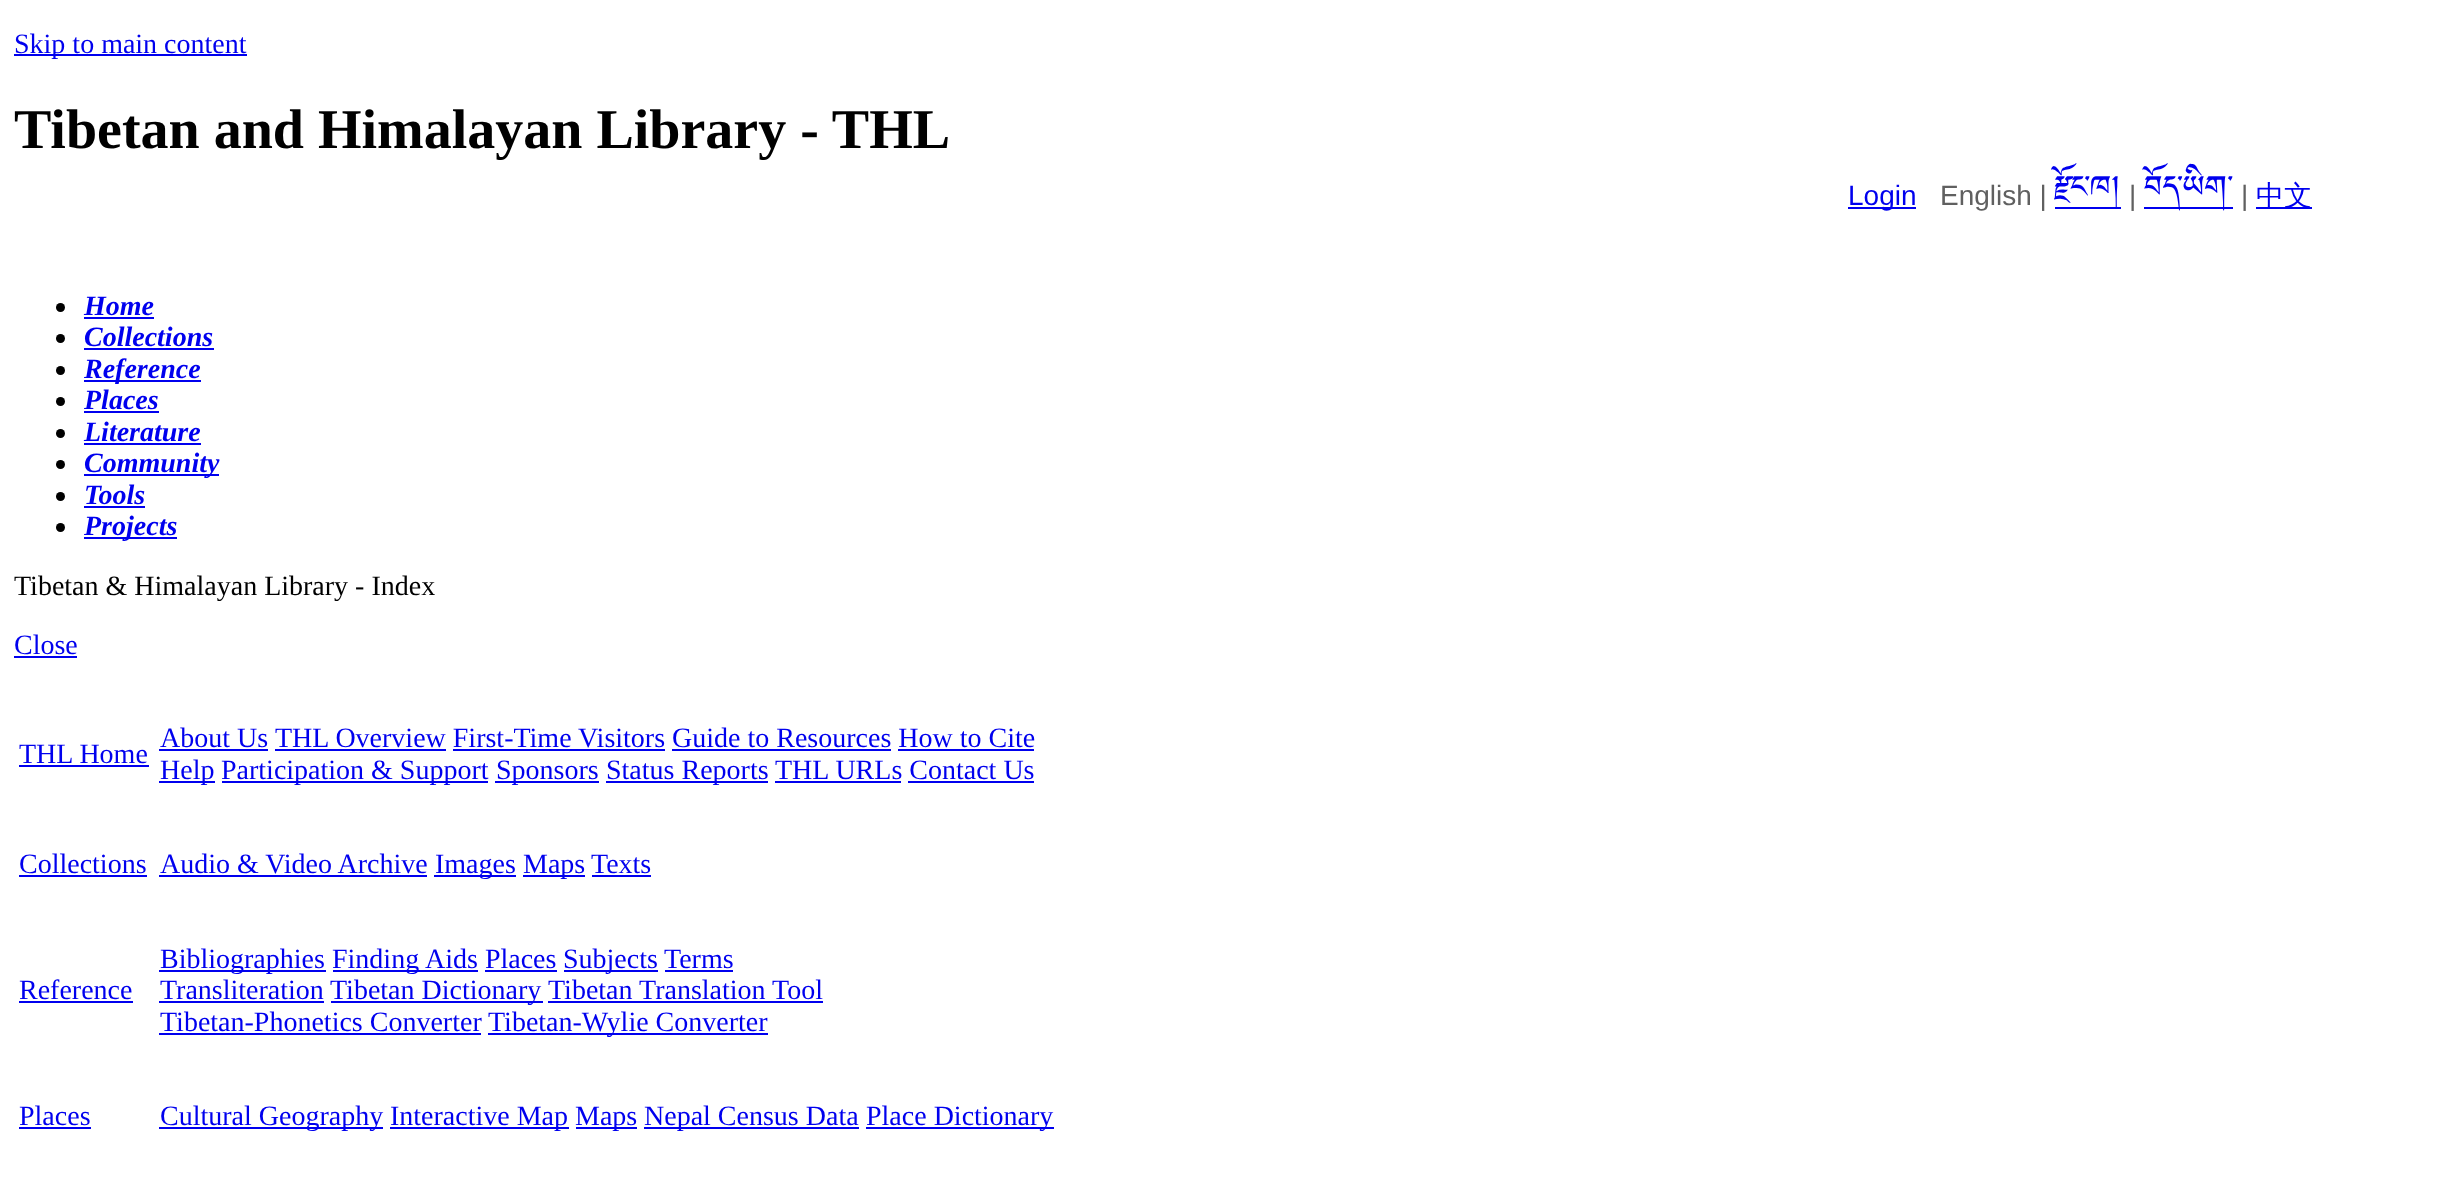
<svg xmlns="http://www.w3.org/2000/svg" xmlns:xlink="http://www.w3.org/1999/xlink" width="2451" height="1181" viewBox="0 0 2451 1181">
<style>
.cls-1{font:28px Liberation Serif;fill:#0000ee}
.cls-2{font:bold 56px Liberation Serif;fill:#000000}
.cls-3{font:28px Liberation Sans;fill:#0000ee}
.cls-4{font:28px Liberation Sans;fill:#606060}
.cls-5{font:39px Jomolhari;fill:#0000ee}
.cls-6{font:500 28px WenQuanYi Zen Hei;fill:#0000ee}
.cls-7{font:italic bold 28px Liberation Serif;fill:#0000ee}
.cls-8{font:28px Liberation Serif;fill:#000000}
</style>
<rect width="100%" height="100%" fill="#ffffff"/>
<rect fill="#0000ee" x="14" y="54" width="233" height="2"/>
<rect fill="#0000ee" x="1848" y="207" width="68" height="2"/>
<rect fill="#0000ee" x="2055" y="207" width="66" height="2"/>
<rect fill="#0000ee" x="2144" y="207" width="89" height="2"/>
<rect fill="#0000ee" x="2256" y="207" width="56" height="2"/>
<circle fill="#000000" cx="60.5" cy="307.5" r="4.5"/>
<rect fill="#0000ee" x="84" y="317" width="70" height="2"/>
<circle fill="#000000" cx="60.5" cy="338.5" r="4.5"/>
<rect fill="#0000ee" x="84" y="348" width="130" height="2"/>
<circle fill="#000000" cx="60.5" cy="370.5" r="4.5"/>
<rect fill="#0000ee" x="84" y="380" width="117" height="2"/>
<circle fill="#000000" cx="60.5" cy="401.5" r="4.5"/>
<rect fill="#0000ee" x="84" y="411" width="75" height="2"/>
<circle fill="#000000" cx="60.5" cy="433.5" r="4.5"/>
<rect fill="#0000ee" x="84" y="443" width="117" height="2"/>
<circle fill="#000000" cx="60.5" cy="464.5" r="4.5"/>
<rect fill="#0000ee" x="84" y="474" width="135" height="2"/>
<circle fill="#000000" cx="60.5" cy="496.5" r="4.5"/>
<rect fill="#0000ee" x="84" y="506" width="61" height="2"/>
<circle fill="#000000" cx="60.5" cy="527.5" r="4.5"/>
<rect fill="#0000ee" x="84" y="537" width="93" height="2"/>
<rect fill="#0000ee" x="14" y="656" width="63" height="2"/>
<rect fill="#0000ee" x="19" y="765" width="130" height="2"/>
<rect fill="#0000ee" x="159" y="749" width="109" height="2"/>
<rect fill="#0000ee" x="275" y="749" width="171" height="2"/>
<rect fill="#0000ee" x="453" y="749" width="212" height="2"/>
<rect fill="#0000ee" x="672" y="749" width="219" height="2"/>
<rect fill="#0000ee" x="898" y="749" width="136" height="2"/>
<rect fill="#0000ee" x="159" y="781" width="56" height="2"/>
<rect fill="#0000ee" x="222" y="781" width="266" height="2"/>
<rect fill="#0000ee" x="495" y="781" width="104" height="2"/>
<rect fill="#0000ee" x="606" y="781" width="162" height="2"/>
<rect fill="#0000ee" x="775" y="781" width="126" height="2"/>
<rect fill="#0000ee" x="908" y="781" width="126" height="2"/>
<rect fill="#0000ee" x="19" y="875" width="128" height="2"/>
<rect fill="#0000ee" x="159" y="875" width="268" height="2"/>
<rect fill="#0000ee" x="434" y="875" width="82" height="2"/>
<rect fill="#0000ee" x="523" y="875" width="62" height="2"/>
<rect fill="#0000ee" x="592" y="875" width="59" height="2"/>
<rect fill="#0000ee" x="19" y="1001" width="114" height="2"/>
<rect fill="#0000ee" x="159" y="970" width="167" height="2"/>
<rect fill="#0000ee" x="333" y="970" width="145" height="2"/>
<rect fill="#0000ee" x="564" y="970" width="94" height="2"/>
<rect fill="#0000ee" x="665" y="970" width="68" height="2"/>
<rect fill="#0000ee" x="485" y="970" width="72" height="2"/>
<rect fill="#0000ee" x="159" y="1001" width="165" height="2"/>
<rect fill="#0000ee" x="331" y="1001" width="212" height="2"/>
<rect fill="#0000ee" x="548" y="1001" width="275" height="2"/>
<rect fill="#0000ee" x="159" y="1033" width="322" height="2"/>
<rect fill="#0000ee" x="488" y="1033" width="280" height="2"/>
<rect fill="#0000ee" x="19" y="1127" width="72" height="2"/>
<rect fill="#0000ee" x="159" y="1127" width="224" height="2"/>
<rect fill="#0000ee" x="390" y="1127" width="179" height="2"/>
<rect fill="#0000ee" x="576" y="1127" width="61" height="2"/>
<rect fill="#0000ee" x="644" y="1127" width="215" height="2"/>
<rect fill="#0000ee" x="866" y="1127" width="188" height="2"/>
<text class="cls-1" x="14" y="53">Skip to main content</text>
<text class="cls-2" x="14" y="148">Tibetan and Himalayan Library - THL</text>
<text class="cls-3" x="1848" y="205">Login</text>
<text class="cls-4" x="1940" y="205">English |</text>
<text class="cls-5" x="2054" y="205">རྫོང་ཁ།</text>
<text class="cls-4" x="2129" y="205">|</text>
<text class="cls-5" x="2144" y="205">བོད་ཡིག་</text>
<text class="cls-4" x="2241" y="205">|</text>
<text class="cls-6" x="2256" y="205">中文</text>
<text class="cls-7"><tspan x="84" y="315">Home</tspan><tspan x="84" y="346">Collections</tspan><tspan x="84" y="378">Reference</tspan><tspan x="84" y="409">Places</tspan><tspan x="84" y="441">Literature</tspan><tspan x="84" y="472">Community</tspan><tspan x="84" y="504">Tools</tspan><tspan x="84" y="535">Projects</tspan></text>
<text class="cls-8" x="14" y="595">Tibetan &amp; Himalayan Library - Index</text>
<text class="cls-1" x="14" y="654">Close</text>
<text class="cls-1" x="19" y="763">THL Home</text>
<text class="cls-1" x="160" y="747">About Us</text>
<text class="cls-1" x="275" y="747">THL Overview First-Time Visitors Guide to Resources How to Cite</text>
<text class="cls-1" x="160" y="779">Help</text>
<text class="cls-1" x="221" y="779">Participation &amp; Support</text>
<text class="cls-1" x="496" y="779">Sponsors</text>
<text class="cls-1" x="606" y="779">Status Reports</text>
<text class="cls-1" x="775" y="779">THL URLs Contact Us</text>
<text class="cls-1" x="19" y="873">Collections</text>
<text class="cls-1" x="160" y="873">Audio &amp; Video Archive</text>
<text class="cls-1" x="435" y="873">Images</text>
<text class="cls-1" x="523" y="873">Maps</text>
<text class="cls-1" x="591" y="873">Texts</text>
<text class="cls-1" x="19" y="999">Reference</text>
<text class="cls-1" x="160" y="968">Bibliographies</text>
<text class="cls-1" x="332" y="968">Finding</text>
<text class="cls-1" x="425" y="968">Aids Places</text>
<text class="cls-1" x="563" y="968">Subjects</text>
<text class="cls-1" x="664" y="968">Terms</text>
<text class="cls-1" x="160" y="999">Transliteration</text>
<text class="cls-1" x="330" y="999">Tibetan Dictionary</text>
<text class="cls-1" x="548" y="999">Tibetan Translation Tool</text>
<text class="cls-1" x="160" y="1031">Tibetan-Phonetics Converter</text>
<text class="cls-1" x="488" y="1031">Tibetan-Wylie Converter</text>
<text class="cls-1" x="19" y="1125">Places</text>
<text class="cls-1" x="160" y="1125">Cultural Geography</text>
<text class="cls-1" x="390" y="1125">Interactive Map</text>
<text class="cls-1" x="575" y="1125">Maps</text>
<text class="cls-1" x="644" y="1125">Nepal Census Data</text>
<text class="cls-1" x="866" y="1125">Place Dictionary</text>
</svg>
